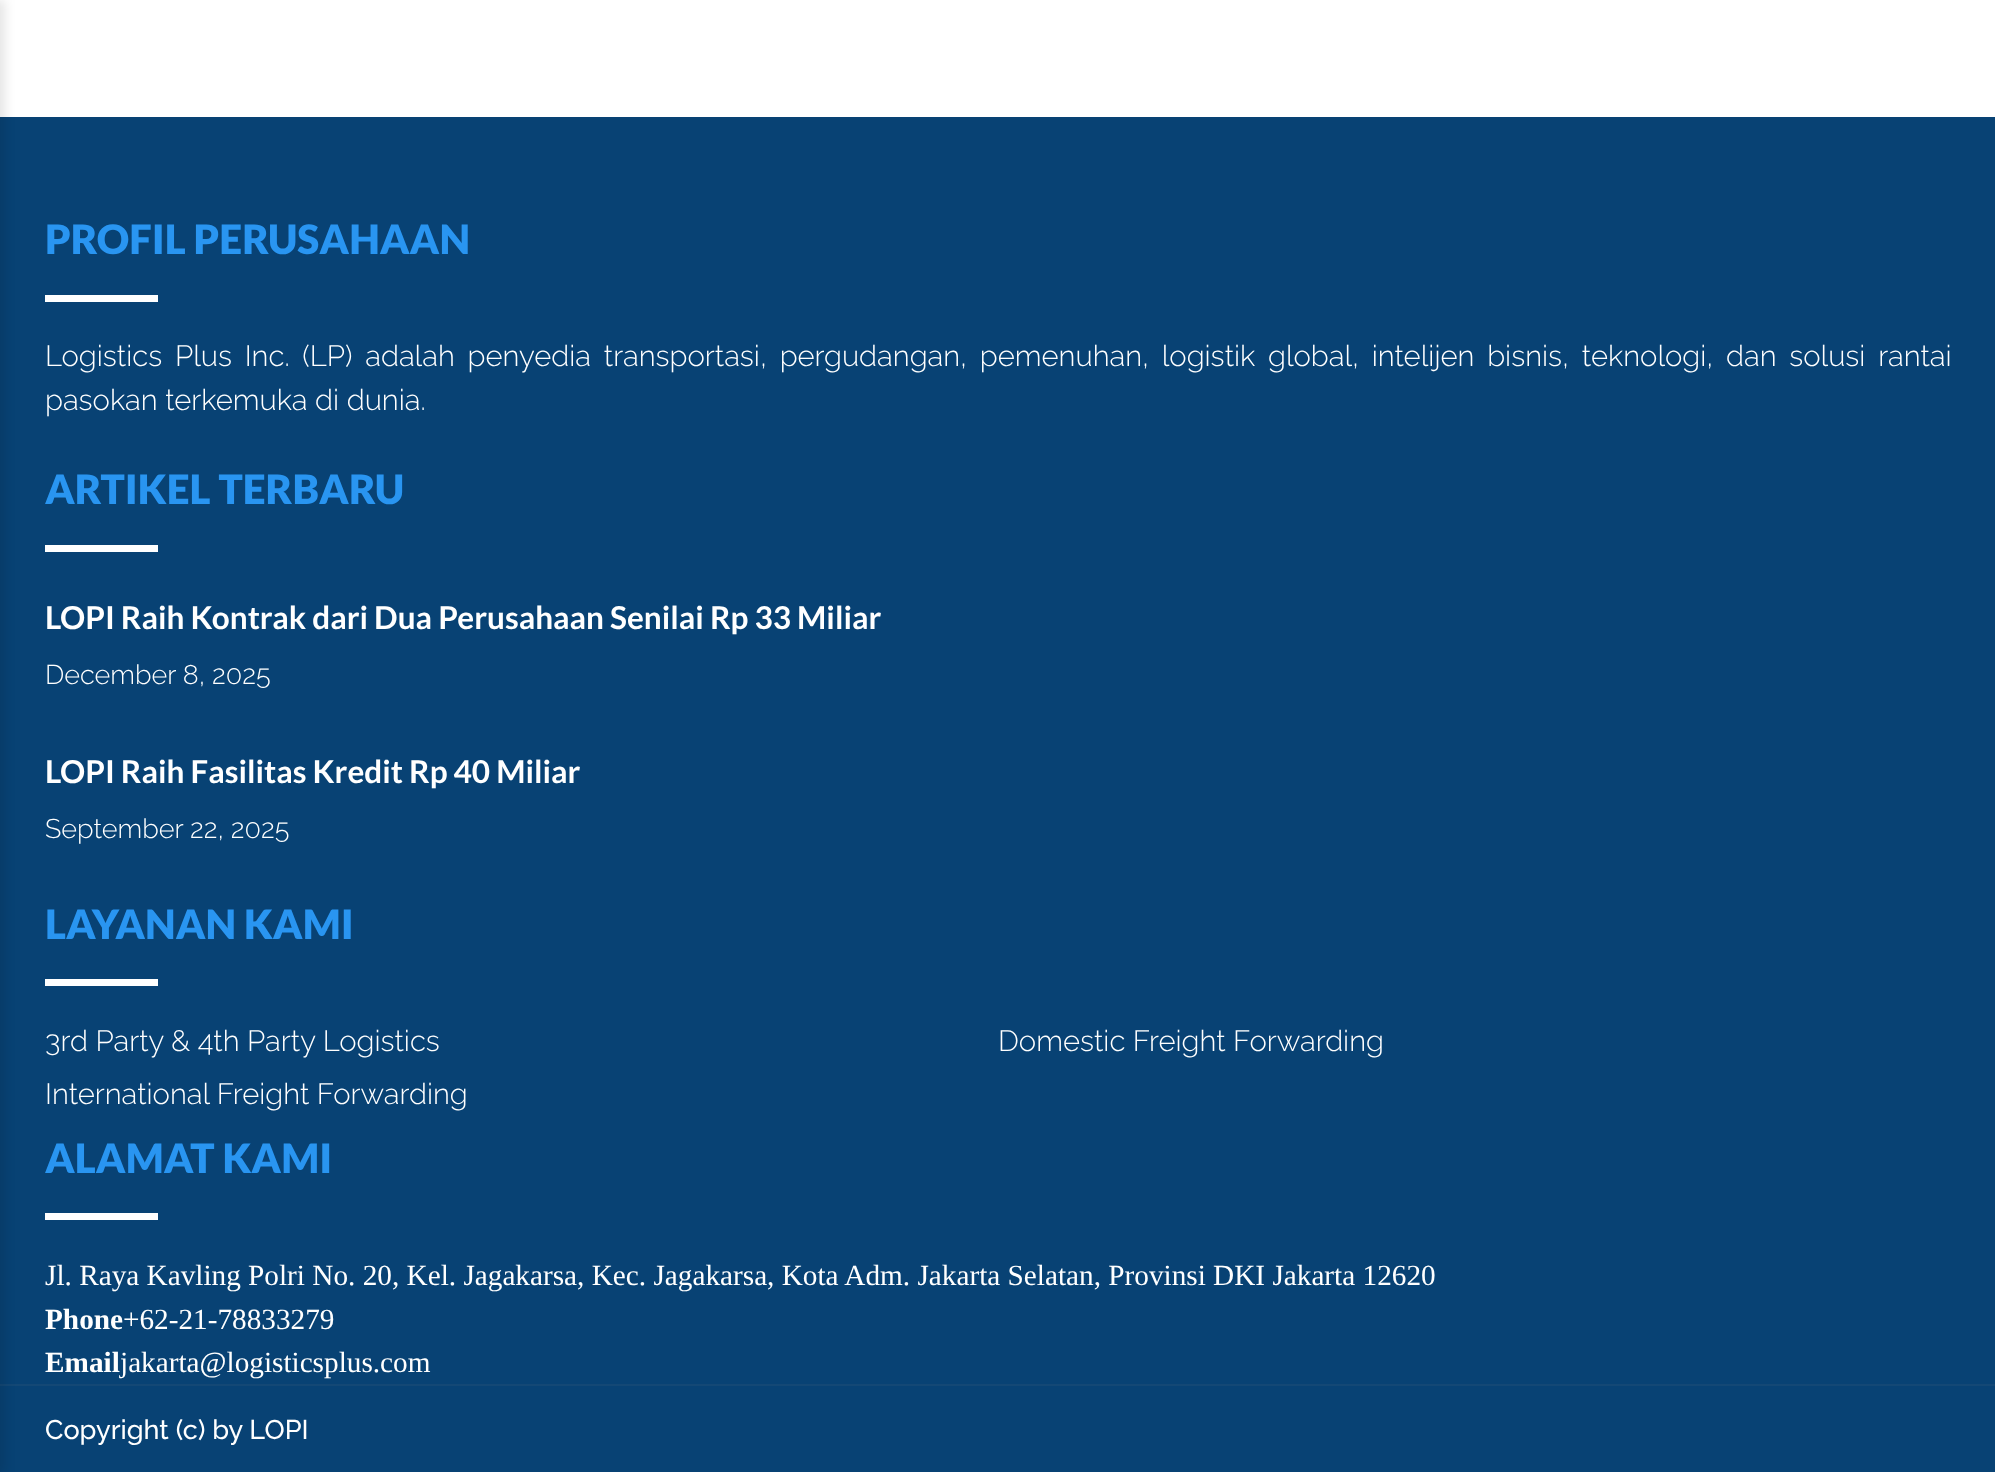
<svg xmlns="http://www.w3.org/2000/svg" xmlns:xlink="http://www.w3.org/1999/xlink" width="1995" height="1472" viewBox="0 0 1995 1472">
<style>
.cls-1{font:900 40.5px Lato;fill:#2995f1}
.cls-2{font:300 29.25px Raleway;fill:#ffffff}
.cls-3{font:bold 31.5px Lato;fill:#ffffff}
.cls-4{font:300 27px Raleway;fill:#ffffff}
.cls-5{font:29.25px Liberation Serif;fill:#ffffff}
.cls-6{font:bold 29.25px Liberation Serif;fill:#ffffff}
.cls-7{font:500 27px Raleway;fill:#ffffff}
</style>
<rect width="100%" height="100%" fill="#ffffff"/>
<rect fill="#084274" x="0" y="117" width="1995" height="1267"/>
<rect fill="#084274" x="0" y="1386" width="1995" height="86"/>
<rect fill="#144875" x="0" y="1384" width="1995" height="2"/>
<rect fill="#000000" fill-opacity="0.1" filter="blur(5.5px)" x="-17" y="0" width="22" height="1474"/>
<rect fill="#ffffff" x="45" y="295" width="113" height="7"/>
<rect fill="#ffffff" x="45" y="545" width="113" height="7"/>
<rect fill="#ffffff" x="45" y="979" width="113" height="7"/>
<rect fill="#ffffff" x="45" y="1213" width="113" height="7"/>
<text class="cls-1" x="45" y="254">PROFIL PERUSAHAAN</text>
<text class="cls-2"><tspan x="45" y="366" word-spacing="5.25">Logistics Plus Inc. (LP) adalah penyedia transportasi, pergudangan, pemenuhan, logistik global, intelijen bisnis, teknologi, dan solusi rantai</tspan><tspan x="45" y="410">pasokan terkemuka di dunia.</tspan></text>
<text class="cls-1" x="45" y="504">ARTIKEL TERBARU</text>
<text class="cls-3" x="45" y="629">LOPI Raih Kontrak dari Dua Perusahaan Senilai Rp 33 Miliar</text>
<text class="cls-4" x="45" y="684">December 8, 2025</text>
<text class="cls-3" x="45" y="783">LOPI Raih Fasilitas Kredit Rp 40 Miliar</text>
<text class="cls-4" x="45" y="838">September 22, 2025</text>
<text class="cls-1" x="45" y="939">LAYANAN KAMI</text>
<text class="cls-2" x="45" y="1051">3rd Party &amp; 4th Party Logistics</text>
<text class="cls-2" x="998" y="1051">Domestic Freight Forwarding</text>
<text class="cls-2" x="45" y="1104">International Freight Forwarding</text>
<text class="cls-1" x="45" y="1173">ALAMAT KAMI</text>
<text class="cls-5" x="45" y="1285">Jl. Raya Kavling Polri No. 20, Kel. Jagakarsa, Kec. Jagakarsa, Kota Adm. Jakarta Selatan, Provinsi DKI Jakarta 12620</text>
<text class="cls-6" x="45" y="1329">Phone</text>
<text class="cls-5" x="123" y="1329">+62-21-78833279</text>
<text class="cls-6" x="45" y="1372">Email</text>
<text class="cls-5" x="120" y="1372">jakarta@logisticsplus.com</text>
<text class="cls-7" x="45" y="1439">Copyright (c) by LOPI</text>
</svg>
